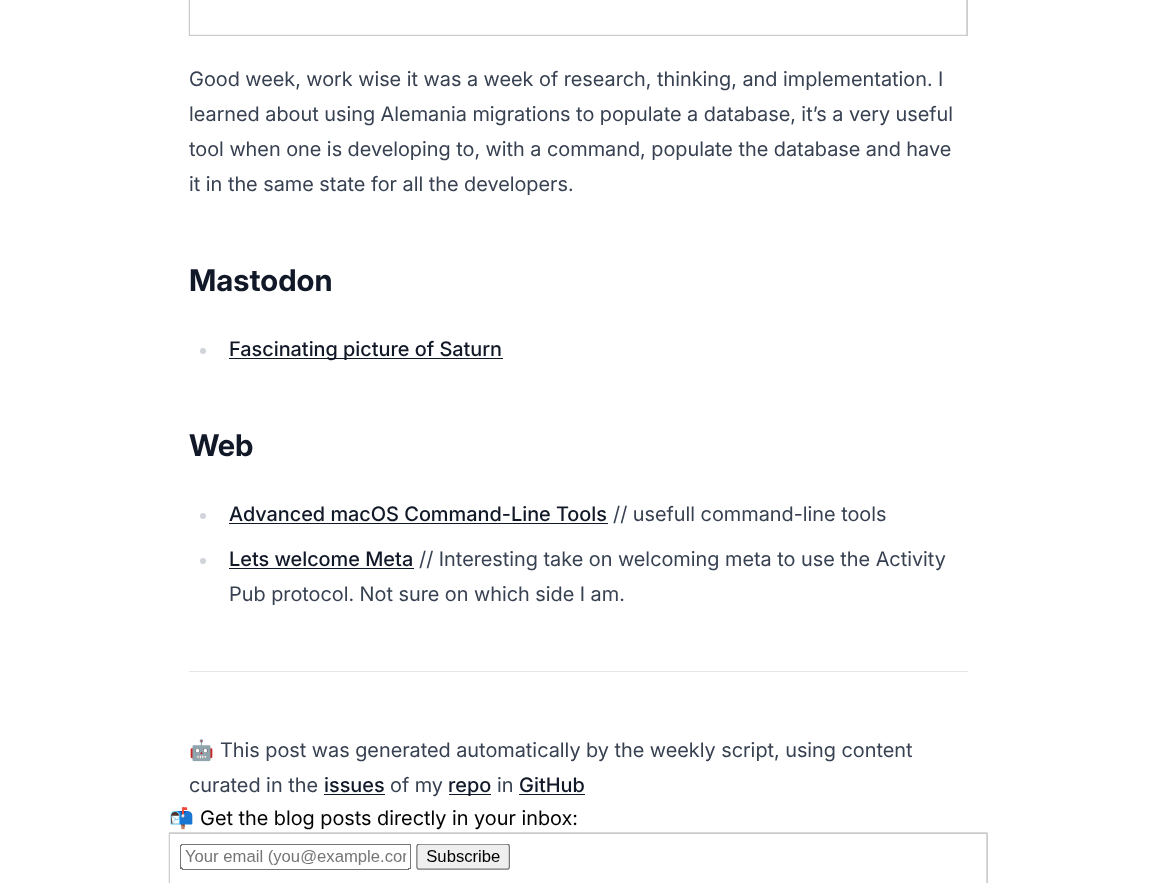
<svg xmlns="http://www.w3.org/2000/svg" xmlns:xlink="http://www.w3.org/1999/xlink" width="1156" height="883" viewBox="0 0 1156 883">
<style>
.cls-1{font:20px Inter;fill:#374151}
.cls-2{font:bold 30px Inter;fill:#111827}
.cls-3{font:500 20px Inter;fill:#111827}
.cls-4{font:20px Noto Color Emoji;fill:#374151}
.cls-5{font:20px Noto Color Emoji;fill:#000000}
.cls-6{font:20px Inter;fill:#000000}
</style>
<rect width="100%" height="100%" fill="#ffffff"/>
<rect fill="none" stroke="#cccccc" x="189.5" y="-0.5" width="778" height="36"/>
<image xlink:href="image0.png" x="188" y="0" width="779" height="36"/>
<circle fill="#d1d5db" cx="203" cy="351" r="3"/>
<rect fill="#111827" x="229" y="358" width="274" height="1"/>
<circle fill="#d1d5db" cx="203" cy="516" r="3"/>
<rect fill="#111827" x="229" y="523" width="379" height="1"/>
<circle fill="#d1d5db" cx="203" cy="561" r="3"/>
<rect fill="#111827" x="229" y="568" width="185" height="1"/>
<rect fill="#e5e7eb" x="189" y="671" width="779" height="1"/>
<rect fill="#111827" x="324" y="794" width="61" height="1"/>
<rect fill="#111827" x="449" y="794" width="42" height="1"/>
<rect fill="#111827" x="519" y="794" width="66" height="1"/>
<rect fill="none" stroke="#cccccc" x="169.5" y="833.5" width="818" height="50"/>
<image xlink:href="image1.png" x="168" y="832" width="820" height="51"/>
<text class="cls-1"><tspan x="189" y="86">Good week, work wise it was a week of research, thinking, and implementation. I</tspan><tspan x="189" y="121">learned about using Alemania migrations to populate a database, it’s a very useful</tspan><tspan x="189" y="156">tool when one is developing to, with a command, populate the database and have</tspan><tspan x="189" y="191">it in the same state for all the developers.</tspan></text>
<text class="cls-2" x="189" y="291">Mastodon</text>
<text class="cls-3" x="229" y="356">Fascinating picture of Saturn</text>
<text class="cls-2" x="189" y="456">Web</text>
<text class="cls-3" x="229" y="521">Advanced macOS Command-Line Tools</text>
<text class="cls-1" x="613" y="521">// usefull command-line tools</text>
<text class="cls-3" x="229" y="566">Lets welcome Meta</text>
<text class="cls-1" x="419" y="566">// Interesting take on welcoming meta to use the Activity</text>
<text class="cls-1" x="229" y="601">Pub protocol. Not sure on which side I am.</text>
<text class="cls-4" x="189" y="757">🤖</text>
<text class="cls-1" x="220" y="757">This post was generated automatically by the weekly script, using content</text>
<text class="cls-1" x="189" y="792">curated in the</text>
<text class="cls-3" x="324" y="792">issues</text>
<text class="cls-1" x="390" y="792">of my</text>
<text class="cls-3" x="448" y="792">repo</text>
<text class="cls-1" x="497" y="792">in</text>
<text class="cls-3" x="519" y="792">GitHub</text>
<text class="cls-5" x="169" y="825">📬</text>
<text class="cls-6" x="200" y="825">Get the blog posts directly in your inbox:</text>
</svg>
